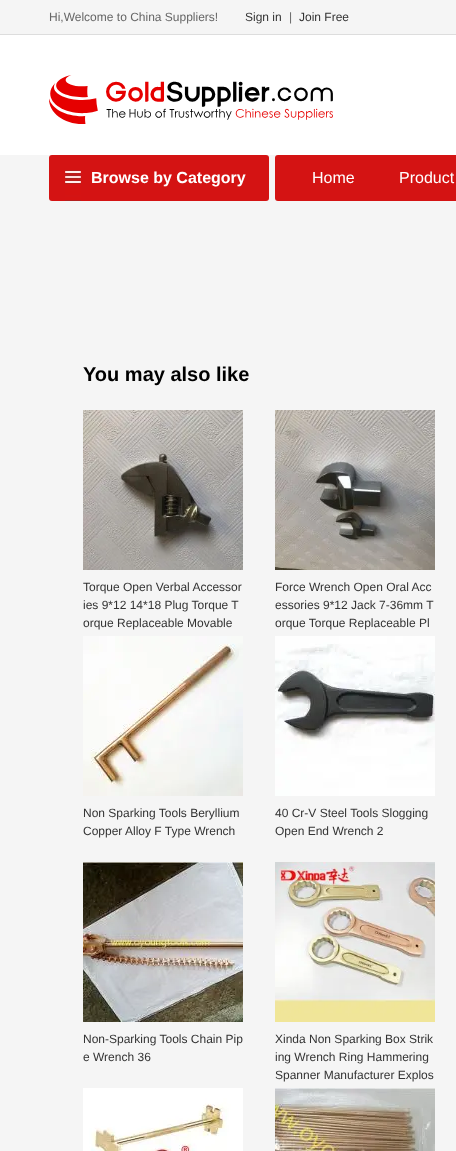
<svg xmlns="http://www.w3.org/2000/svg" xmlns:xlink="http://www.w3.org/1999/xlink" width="456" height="1151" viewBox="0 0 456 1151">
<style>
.cls-1{font:12px Liberation Sans;fill:#666666}
.cls-2{font:12px Liberation Sans;fill:#333333}
.cls-3{font:bold 16px Liberation Sans;fill:#ffffff}
.cls-4{font:16px Liberation Sans;fill:#ffffff}
.cls-5{font:bold 20px Liberation Sans;fill:#000000}
</style>
<rect width="100%" height="100%" fill="#f5f5f5"/>
<rect fill="#dddddd" x="0" y="34" width="456" height="1"/>
<rect fill="#ffffff" x="0" y="35" width="456" height="120"/>
<image xlink:href="image0.png" x="49" y="75" width="284" height="49"/>
<rect fill="#d41313" x="49" y="155" width="220" height="46" rx="3"/>
<image xlink:href="image1.png" x="65" y="170" width="16" height="31"/>
<rect fill="#d41313" x="275" y="155" width="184" height="46" rx="3"/>
<image xlink:href="image2.png" x="83" y="410" width="160" height="160"/>
<image xlink:href="image3.png" x="275" y="410" width="160" height="160"/>
<image xlink:href="image4.png" x="83" y="636" width="160" height="160"/>
<image xlink:href="image5.png" x="275" y="636" width="160" height="160"/>
<image xlink:href="image6.png" x="83" y="862" width="160" height="160"/>
<image xlink:href="image7.png" x="275" y="862" width="160" height="160"/>
<image xlink:href="image8.png" x="83" y="1088" width="160" height="63"/>
<image xlink:href="image9.png" x="275" y="1088" width="160" height="63"/>
<text class="cls-1" x="49" y="21">Hi,Welcome to China Suppliers!</text>
<text class="cls-2" x="245" y="21">Sign in</text>
<text class="cls-1" x="289" y="21">|</text>
<text class="cls-2" x="299" y="21">Join Free</text>
<text class="cls-3" x="91" y="183">Browse by Category</text>
<text class="cls-4" x="312" y="183">Home</text>
<text class="cls-4" x="399" y="183">Product</text>
<text class="cls-5" x="83" y="381">You may also like</text>
<text class="cls-2"><tspan x="83" y="591">Torque Open Verbal Accessor</tspan><tspan x="83" y="609">ies 9*12 14*18 Plug Torque T</tspan><tspan x="83" y="627">orque Replaceable Movable</tspan></text>
<text class="cls-2"><tspan x="275" y="591">Force Wrench Open Oral Acc</tspan><tspan x="275" y="609">essories 9*12 Jack 7-36mm T</tspan><tspan x="275" y="627">orque Torque Replaceable Pl</tspan></text>
<text class="cls-2"><tspan x="83" y="817">Non Sparking Tools Beryllium</tspan><tspan x="83" y="835">Copper Alloy F Type Wrench</tspan></text>
<text class="cls-2"><tspan x="275" y="817">40 Cr-V Steel Tools Slogging</tspan><tspan x="275" y="835">Open End Wrench 2</tspan></text>
<text class="cls-2"><tspan x="83" y="1043">Non-Sparking Tools Chain Pip</tspan><tspan x="83" y="1061">e Wrench 36</tspan></text>
<text class="cls-2"><tspan x="275" y="1043">Xinda Non Sparking Box Strik</tspan><tspan x="275" y="1061">ing Wrench Ring Hammering</tspan><tspan x="275" y="1079">Spanner Manufacturer Explos</tspan></text>
</svg>
